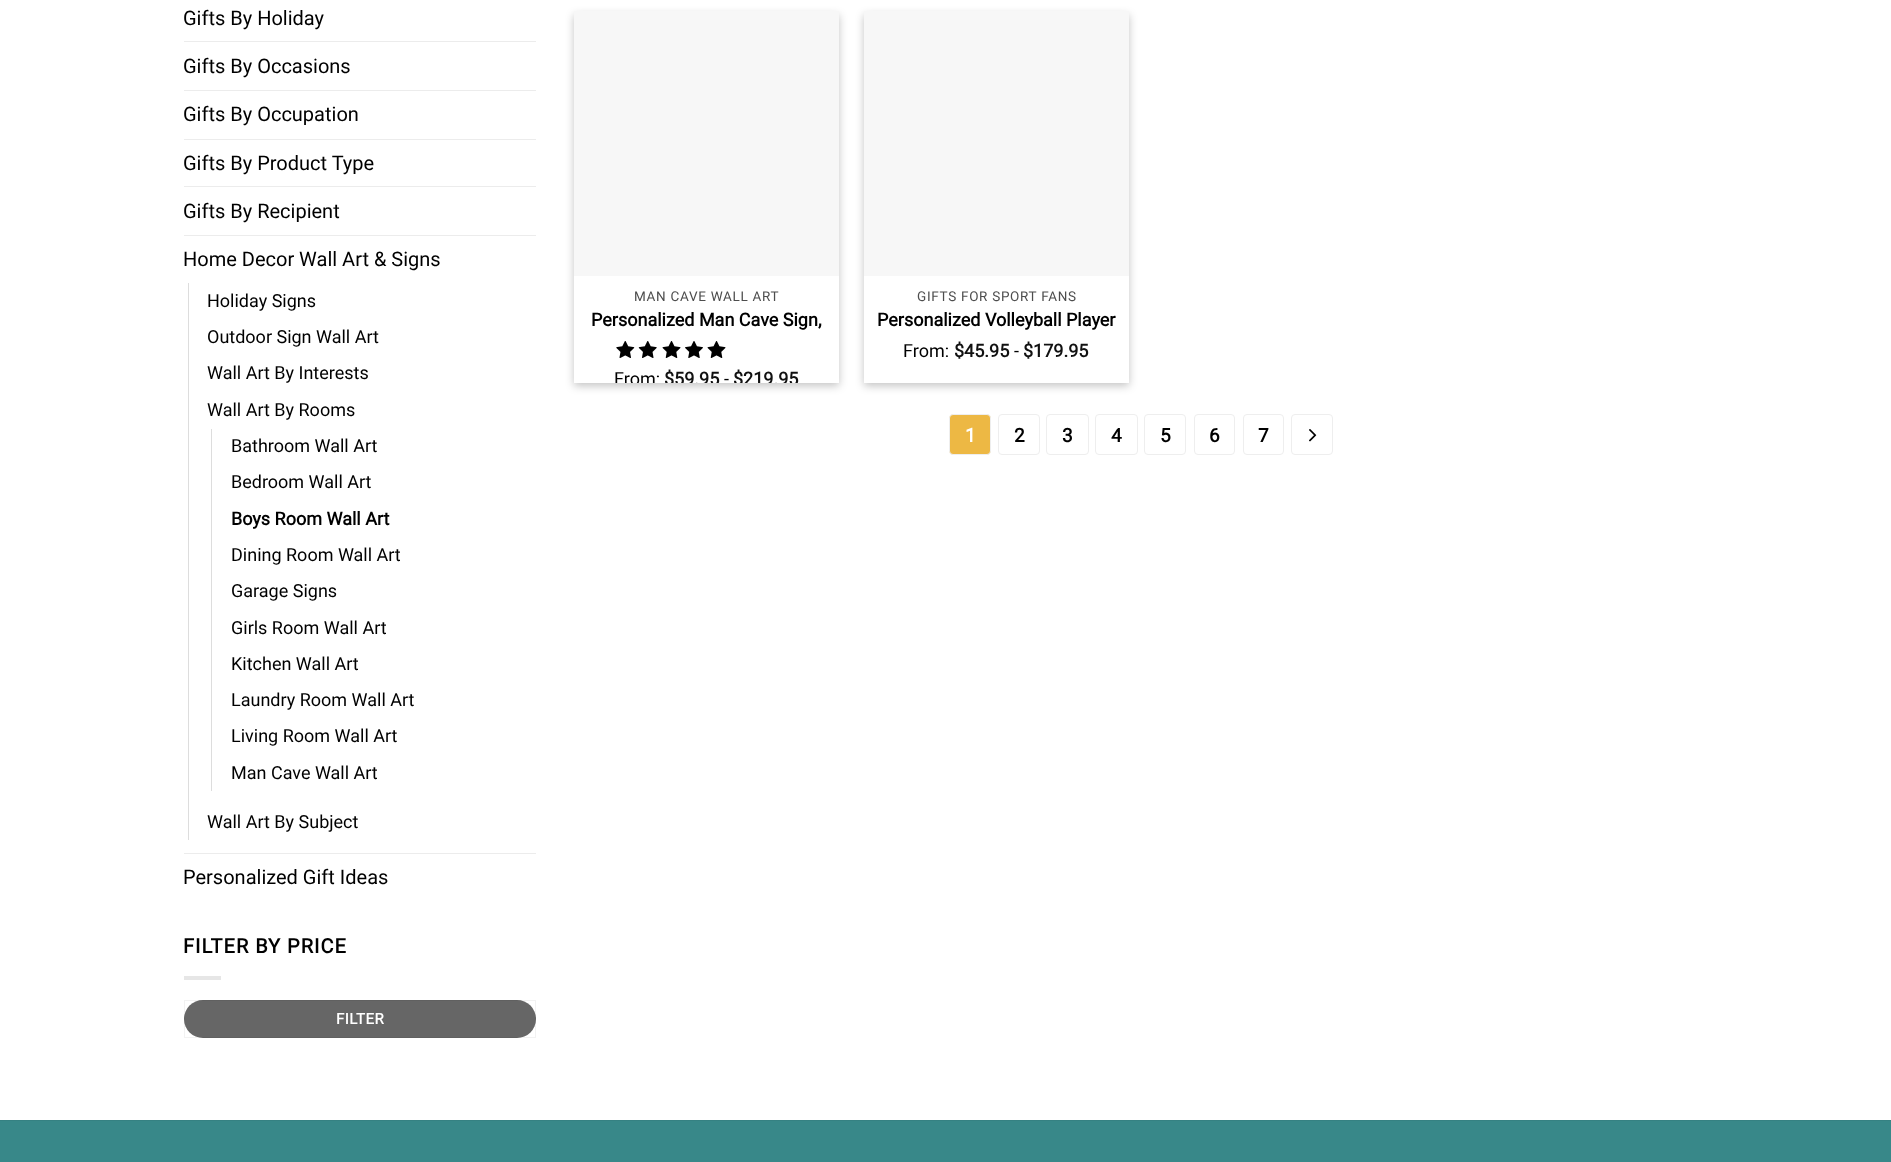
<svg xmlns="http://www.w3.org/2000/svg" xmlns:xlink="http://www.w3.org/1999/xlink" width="1891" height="1162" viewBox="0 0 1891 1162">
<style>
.cls-1{font:20px Roboto;fill:#000000}
.cls-2{font:18px Roboto;fill:#000000}
.cls-3{font:bold 18px Roboto;fill:#000000}
.cls-4{font:bold 20px Roboto;letter-spacing:1px;fill:#000000}
.cls-5{font:bold 15px Roboto;letter-spacing:0.5px;fill:#ffffff}
.cls-6{font:13.5px Roboto;letter-spacing:0.7px;fill:#4d4d4d}
.cls-7{font:bold 18px Roboto;fill:#111111}
.cls-8{font:bold 19px Roboto;fill:#ffffff}
.cls-9{font:bold 19px Roboto;fill:#000000}
</style>
<defs>
<clipPath id="clip1"><path d="M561 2H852V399H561ZM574 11H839V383H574Z" clip-rule="evenodd"/></clipPath>
<clipPath id="clip2"><path d="M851 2H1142V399H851ZM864 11H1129V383H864Z" clip-rule="evenodd"/></clipPath>
<clipPath id="clip3"><rect x="574" y="276" width="265" height="107"/></clipPath>
</defs>
<rect width="100%" height="100%" fill="#ffffff"/>
<rect fill="#ececec" x="184" y="41" width="352" height="1"/>
<rect fill="#ececec" x="184" y="90" width="352" height="1"/>
<rect fill="#ececec" x="184" y="139" width="352" height="1"/>
<rect fill="#ececec" x="184" y="186" width="352" height="1"/>
<rect fill="#ececec" x="184" y="235" width="352" height="1"/>
<rect fill="#dddddd" x="188" y="283" width="1" height="557"/>
<rect fill="#dddddd" x="211" y="429" width="1" height="362"/>
<rect fill="#ececec" x="184" y="853" width="352" height="1"/>
<rect fill="#e6e6e6" x="184" y="976" width="37" height="4"/>
<rect fill="#666666" x="184" y="1000" width="352" height="38" rx="19"/>
<rect fill="none" stroke="#000000" stroke-opacity="0.05" x="184.5" y="1000.5" width="351" height="37"/>
<g clip-path="url(#clip1)">
<rect fill="#000000" fill-opacity="0.23" filter="blur(4px)" x="574" y="15" width="265" height="371"/>
</g>
<rect fill="#000000" fill-opacity="0.03" x="574" y="11" width="265" height="265"/>
<image xlink:href="image0.png" x="616" y="341" width="19" height="17"/>
<image xlink:href="image1.png" x="638" y="341" width="19" height="17"/>
<image xlink:href="image2.png" x="662" y="341" width="19" height="17"/>
<image xlink:href="image3.png" x="685" y="341" width="18" height="17"/>
<image xlink:href="image2.png" x="707" y="341" width="19" height="17"/>
<g clip-path="url(#clip2)">
<rect fill="#000000" fill-opacity="0.23" filter="blur(4px)" x="864" y="15" width="265" height="371"/>
</g>
<rect fill="#000000" fill-opacity="0.03" x="864" y="11" width="265" height="265"/>
<rect fill="#edb844" stroke="#eeeeee" x="949.5" y="414.5" width="41" height="40" rx="3.5"/>
<rect fill="none" stroke="#eeeeee" x="998.5" y="414.5" width="41" height="40" rx="3.5"/>
<rect fill="none" stroke="#eeeeee" x="1046.5" y="414.5" width="42" height="40" rx="3.5"/>
<rect fill="none" stroke="#eeeeee" x="1095.5" y="414.5" width="42" height="40" rx="3.5"/>
<rect fill="none" stroke="#eeeeee" x="1144.5" y="414.5" width="41" height="40" rx="3.5"/>
<rect fill="none" stroke="#eeeeee" x="1194.5" y="414.5" width="40" height="40" rx="3.5"/>
<rect fill="none" stroke="#eeeeee" x="1243.5" y="414.5" width="40" height="40" rx="3.5"/>
<rect fill="none" stroke="#eeeeee" x="1291.5" y="414.5" width="41" height="40" rx="3.5"/>
<image xlink:href="image4.png" x="1309" y="429" width="8" height="13"/>
<rect fill="#388889" x="0" y="1121" width="1891" height="41"/>
<rect fill="#358182" x="0" y="1120" width="1891" height="1"/>
<text class="cls-1" x="183" y="25">Gifts By Holiday</text>
<text class="cls-1" x="183" y="73">Gifts By Occasions</text>
<text class="cls-1" x="183" y="121">Gifts By Occupation</text>
<text class="cls-1" x="183" y="170">Gifts By Product Type</text>
<text class="cls-1" x="183" y="218">Gifts By Recipient</text>
<text class="cls-1" x="183" y="266">Home Decor Wall Art &amp; Signs</text>
<text class="cls-2" x="207" y="307">Holiday Signs</text>
<text class="cls-2" x="207" y="343">Outdoor Sign Wall Art</text>
<text class="cls-2" x="207" y="379">Wall Art By Interests</text>
<text class="cls-2" x="207" y="416">Wall Art By Rooms</text>
<text class="cls-2" x="231" y="452">Bathroom Wall Art</text>
<text class="cls-2" x="231" y="488">Bedroom Wall Art</text>
<text class="cls-3" x="231" y="525">Boys Room Wall Art</text>
<text class="cls-2" x="231" y="561">Dining Room Wall Art</text>
<text class="cls-2" x="231" y="597">Garage Signs</text>
<text class="cls-2" x="231" y="634">Girls Room Wall Art</text>
<text class="cls-2" x="231" y="670">Kitchen Wall Art</text>
<text class="cls-2" x="231" y="706">Laundry Room Wall Art</text>
<text class="cls-2" x="231" y="742">Living Room Wall Art</text>
<text class="cls-2" x="231" y="779">Man Cave Wall Art</text>
<text class="cls-2" x="207" y="828">Wall Art By Subject</text>
<text class="cls-1" x="183" y="884">Personalized Gift Ideas</text>
<text class="cls-4" x="183" y="953">FILTER BY PRICE</text>
<text class="cls-5" x="336" y="1024">FILTER</text>
<text class="cls-6" x="634" y="301">MAN CAVE WALL ART</text>
<text class="cls-3" x="591" y="326">Personalized Man Cave Sign,</text>
<g clip-path="url(#clip3)">
<text class="cls-2" x="614" y="385">From:</text>
<text class="cls-7" x="664" y="385">$59.95</text>
</g>
<text class="cls-2" x="724" y="385">-</text>
<g clip-path="url(#clip3)">
<text class="cls-7" x="733" y="385">$219.95</text>
</g>
<text class="cls-6" x="917" y="301">GIFTS FOR SPORT FANS</text>
<text class="cls-3" x="877" y="326">Personalized Volleyball Player</text>
<text class="cls-2" x="903" y="357">From:</text>
<text class="cls-7" x="954" y="357">$45.95</text>
<text class="cls-2" x="1014" y="357">-</text>
<text class="cls-7" x="1023" y="357">$179.95</text>
<text class="cls-8" x="965" y="442">1</text>
<text class="cls-9" x="1014" y="442">2</text>
<text class="cls-9" x="1062" y="442">3</text>
<text class="cls-9" x="1111" y="442">4</text>
<text class="cls-9" x="1160" y="442">5</text>
<text class="cls-9" x="1209" y="442">6</text>
<text class="cls-9" x="1258" y="442">7</text>
</svg>
